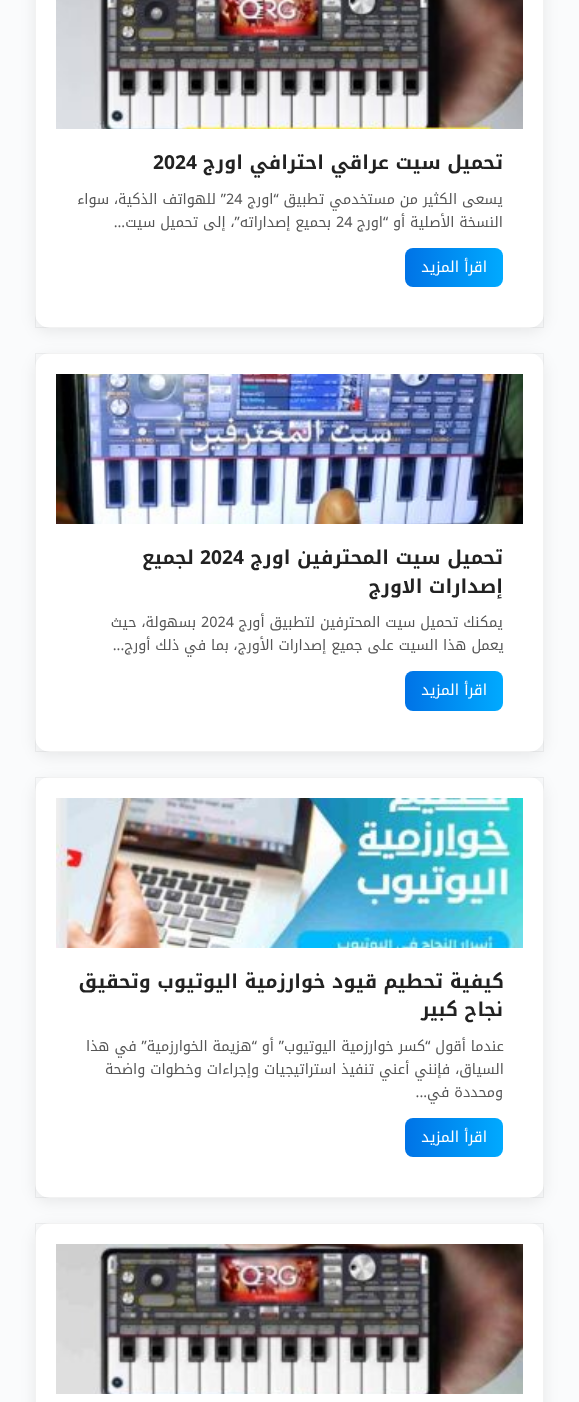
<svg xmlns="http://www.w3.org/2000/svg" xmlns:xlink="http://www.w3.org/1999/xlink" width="579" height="1402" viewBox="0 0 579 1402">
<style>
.cls-1{font:bold 19.2px Noto Kufi Arabic;direction:rtl;fill:#222222}
.cls-2{font:bold 19.2px Noto Kufi Arabic;fill:#222222}
.cls-3{font:14.4px Noto Kufi Arabic;direction:rtl;fill:#555555}
.cls-4{font:14.4px Noto Kufi Arabic;fill:#555555}
.cls-5{font:15px Noto Kufi Arabic;direction:rtl;fill:#ffffff}
</style>
<defs>
<linearGradient id="g1" gradientUnits="userSpaceOnUse" x1="405" y1="268" x2="503" y2="268"><stop offset="0" stop-color="#0073e6"/><stop offset="1" stop-color="#00aaff"/></linearGradient>
<linearGradient id="g2" gradientUnits="userSpaceOnUse" x1="405" y1="691" x2="503" y2="691"><stop offset="0" stop-color="#0073e6"/><stop offset="1" stop-color="#00aaff"/></linearGradient>
<linearGradient id="g3" gradientUnits="userSpaceOnUse" x1="405" y1="1138" x2="503" y2="1138"><stop offset="0" stop-color="#0073e6"/><stop offset="1" stop-color="#00aaff"/></linearGradient>
</defs>
<rect width="100%" height="100%" fill="#fafbfc"/>
<rect fill="#000000" fill-opacity="0.08" filter="blur(7.5px)" x="35" y="-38" width="509" height="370" rx="15"/>
<rect fill="#ffffff" x="35" y="-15" width="509" height="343" rx="15"/>
<rect fill="none" stroke="#000000" stroke-opacity="0.05" x="35.5" y="-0.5" width="508" height="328"/>
<image xlink:href="image0.png" x="56" y="0" width="467" height="129"/>
<rect fill="url(#g1)" x="405" y="248" width="98" height="39" rx="8"/>
<rect fill="#000000" fill-opacity="0.08" filter="blur(7.5px)" x="35" y="357" width="509" height="399" rx="15"/>
<rect fill="#ffffff" x="35" y="353" width="509" height="399" rx="15"/>
<rect fill="none" stroke="#000000" stroke-opacity="0.05" x="35.5" y="353.5" width="508" height="398"/>
<image xlink:href="image1.png" x="56" y="374" width="467" height="150"/>
<rect fill="url(#g2)" x="405" y="671" width="98" height="40" rx="8"/>
<rect fill="#000000" fill-opacity="0.08" filter="blur(7.5px)" x="35" y="781" width="509" height="421" rx="15"/>
<rect fill="#ffffff" x="35" y="777" width="509" height="421" rx="15"/>
<rect fill="none" stroke="#000000" stroke-opacity="0.05" x="35.5" y="777.5" width="508" height="420"/>
<image xlink:href="image2.png" x="56" y="798" width="467" height="150"/>
<rect fill="url(#g3)" x="405" y="1118" width="98" height="39" rx="8"/>
<rect fill="#000000" fill-opacity="0.08" filter="blur(7.5px)" x="35" y="1227" width="509" height="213" rx="15"/>
<rect fill="#ffffff" x="35" y="1223" width="509" height="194" rx="15"/>
<rect fill="none" stroke="#000000" stroke-opacity="0.05" x="35.5" y="1223.5" width="508" height="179"/>
<image xlink:href="image3.png" x="56" y="1244" width="467" height="150"/>
<text class="cls-1" x="503" y="169">تحميل سيت عراقي احترافي اورج</text>
<text class="cls-2" x="153" y="169">2024</text>
<text class="cls-3" x="503" y="204">يسعى الكثير من مستخدمي تطبيق “اورج</text>
<text class="cls-4" x="226" y="204">24</text>
<text class="cls-3" x="226" y="204">” للهواتف الذكية، سواء</text>
<text class="cls-3" x="503" y="227">النسخة الأصلية أو “اورج</text>
<text class="cls-4" x="336" y="227">24</text>
<text class="cls-3" x="331" y="227">بحميع إصداراته”، إلى تحميل سيت...</text>
<text class="cls-5" x="487" y="272">اقرأ المزيد</text>
<text class="cls-1" x="503" y="564">تحميل سيت المحترفين اورج</text>
<text class="cls-2" x="200" y="564">2024</text>
<text class="cls-1" x="194" y="564">لجميع</text>
<text class="cls-1" x="503" y="593">إصدارات الاورج</text>
<text class="cls-3" x="503" y="627">يمكنك تحميل سيت المحترفين لتطبيق أورج</text>
<text class="cls-4" x="201" y="627">2024</text>
<text class="cls-3" x="196" y="627">بسهولة، حيث</text>
<text class="cls-3" x="504" y="650">يعمل هذا السيت على جميع إصدارات الأورج، بما في ذلك أورج...</text>
<text class="cls-5" x="487" y="695">اقرأ المزيد</text>
<text class="cls-1" x="504" y="988">كيفية تحطيم قيود خوارزمية اليوتيوب وتحقيق</text>
<text class="cls-1" x="503" y="1016">نجاح كبير</text>
<text class="cls-3"><tspan x="504" y="1051">عندما أقول “كسر خوارزمية اليوتيوب” أو “هزيمة الخوارزمية” في هذا</tspan><tspan x="504" y="1074">السياق، فإنني أعني تنفيذ استراتيجيات وإجراءات وخطوات واضحة</tspan></text>
<text class="cls-3" x="503" y="1097">ومحددة في...</text>
<text class="cls-5" x="487" y="1142">اقرأ المزيد</text>
</svg>
